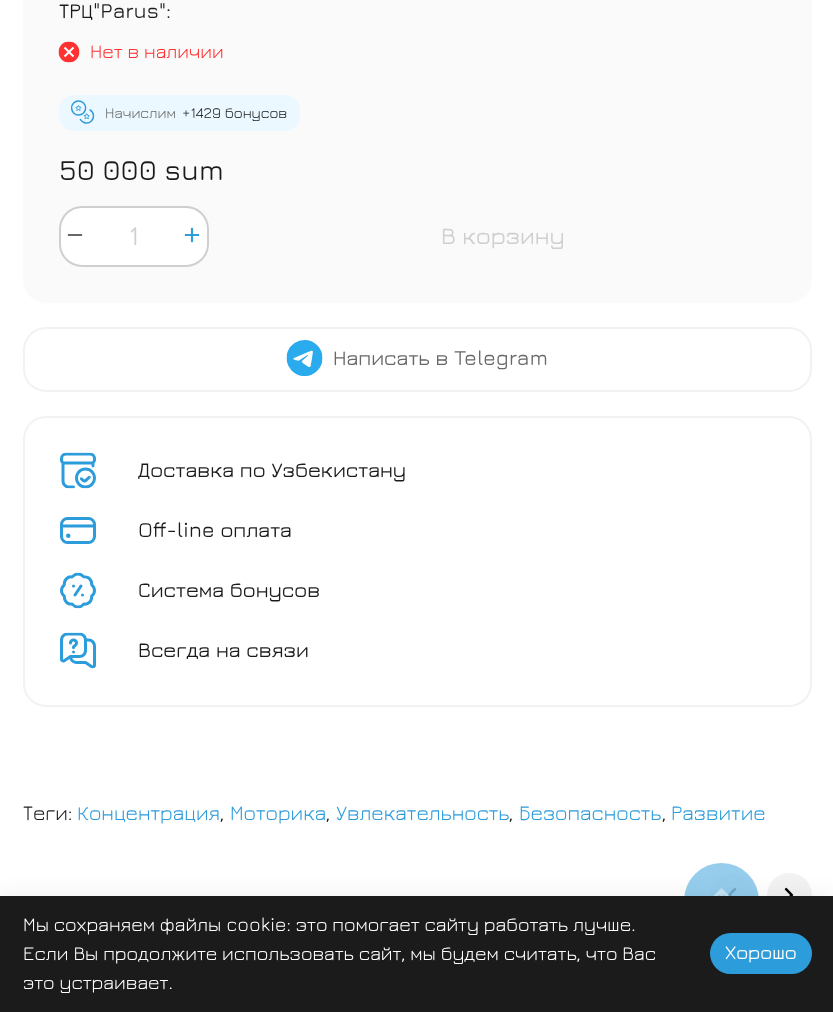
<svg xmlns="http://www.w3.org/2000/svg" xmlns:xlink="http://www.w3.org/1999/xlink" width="833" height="1012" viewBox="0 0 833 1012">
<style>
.cls-1{font:500 21px Jura;fill:#1b1b1b}
.cls-2{font:19.5px Jura;fill:#ff3131}
.cls-3{font:15px Jura;fill:#686868}
.cls-4{font:15px Jura;fill:#1b1b1b}
.cls-5{font:500 28.5px Jura;fill:#1b1b1b}
.cls-6{font:500 27px Jura;fill:#cfcfcf}
.cls-7{font:500 24px Jura;fill:#cfcfcf}
.cls-8{font:500 21px Jura;fill:#686868}
.cls-9{font:21px Jura;fill:#1b1b1b}
.cls-10{font:21px Jura;fill:#2d9cdb}
.cls-11{font:19.5px Jura;fill:#ffffff}
.cls-12{font:500 19.5px Jura;fill:#ffffff}
</style>
<rect width="100%" height="100%" fill="#ffffff"/>
<rect fill="#fafafa" x="23" y="-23" width="789" height="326" rx="23"/>
<image xlink:href="image0.png" x="58" y="41" width="22" height="22"/>
<rect fill="#ebf8ff" x="59" y="95" width="241" height="36" rx="15"/>
<image xlink:href="image1.png" x="70" y="100" width="25" height="24"/>
<rect fill="#ffffff" stroke="#cfcfcf" stroke-width="2" x="60" y="207" width="148" height="59" rx="22"/>
<image xlink:href="image2.png" x="67" y="234" width="16" height="2"/>
<image xlink:href="image3.png" x="184" y="227" width="16" height="16"/>
<rect fill="none" stroke="#f2f2f2" stroke-width="2" x="24" y="328" width="787" height="63" rx="22"/>
<image xlink:href="image4.png" x="286" y="340" width="37" height="36"/>
<rect fill="none" stroke="#f2f2f2" stroke-width="2" x="24" y="417" width="787" height="289" rx="22"/>
<image xlink:href="image5.png" x="60" y="452" width="36" height="37"/>
<image xlink:href="image6.png" x="60" y="517" width="36" height="27"/>
<image xlink:href="image7.png" x="60" y="572" width="36" height="37"/>
<image xlink:href="image8.png" x="60" y="632" width="36" height="37"/>
<circle fill="#fbfbfb" cx="732.5" cy="895.5" r="22.5"/>
<image xlink:href="image9.png" x="728" y="887" width="9" height="9"/>
<circle fill="#f2f2f2" cx="789.5" cy="895.5" r="22.5"/>
<image xlink:href="image10.png" x="784" y="887" width="10" height="9"/>
<circle fill="#2d9cdb" fill-opacity="0.5" cx="721.5" cy="900.5" r="37.5"/>
<image xlink:href="image11.png" x="713" y="888" width="17" height="8"/>
<rect fill="#000000" fill-opacity="0.07" filter="blur(11px)" x="0" y="896" width="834" height="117"/>
<rect fill="#1b1b1b" x="0" y="896" width="833" height="116"/>
<rect fill="#2d9cdb" x="710" y="933" width="102" height="41" rx="20.5"/>
<text class="cls-1" x="59" y="18">ТРЦ"Parus":</text>
<text class="cls-2" x="90" y="58">Нет в наличии</text>
<text class="cls-3" x="105" y="118">Начислим</text>
<text class="cls-4" x="182" y="118">+1429 бонусов</text>
<text class="cls-5" x="59" y="180">50 000 sum</text>
<text class="cls-6" x="129" y="245">1</text>
<text class="cls-7" x="441" y="244">В корзину</text>
<text class="cls-8" x="333" y="365">Написать в Telegram</text>
<text class="cls-1" x="138" y="477">Доставка по Узбекистану</text>
<text class="cls-1" x="138" y="537">Off-line оплата</text>
<text class="cls-1" x="138" y="597">Система бонусов</text>
<text class="cls-1" x="138" y="657">Всегда на связи</text>
<text class="cls-9" x="23" y="820">Теги:</text>
<text class="cls-10" x="77" y="820">Концентрация</text>
<text class="cls-9" x="220" y="820">,</text>
<text class="cls-10" x="230" y="820">Моторика</text>
<text class="cls-9" x="326" y="820">,</text>
<text class="cls-10" x="336" y="820">Увлекательность</text>
<text class="cls-9" x="509" y="820">,</text>
<text class="cls-10" x="519" y="820">Безопасность</text>
<text class="cls-9" x="662" y="820">,</text>
<text class="cls-10" x="671" y="820">Развитие</text>
<text class="cls-11"><tspan x="23" y="931">Мы сохраняем файлы cookie: это помогает сайту работать лучше.</tspan><tspan x="23" y="960">Если Вы продолжите использовать сайт, мы будем считать, что Вас</tspan><tspan x="23" y="989">это устраивает.</tspan></text>
<text class="cls-12" x="725" y="959">Хорошо</text>
</svg>
